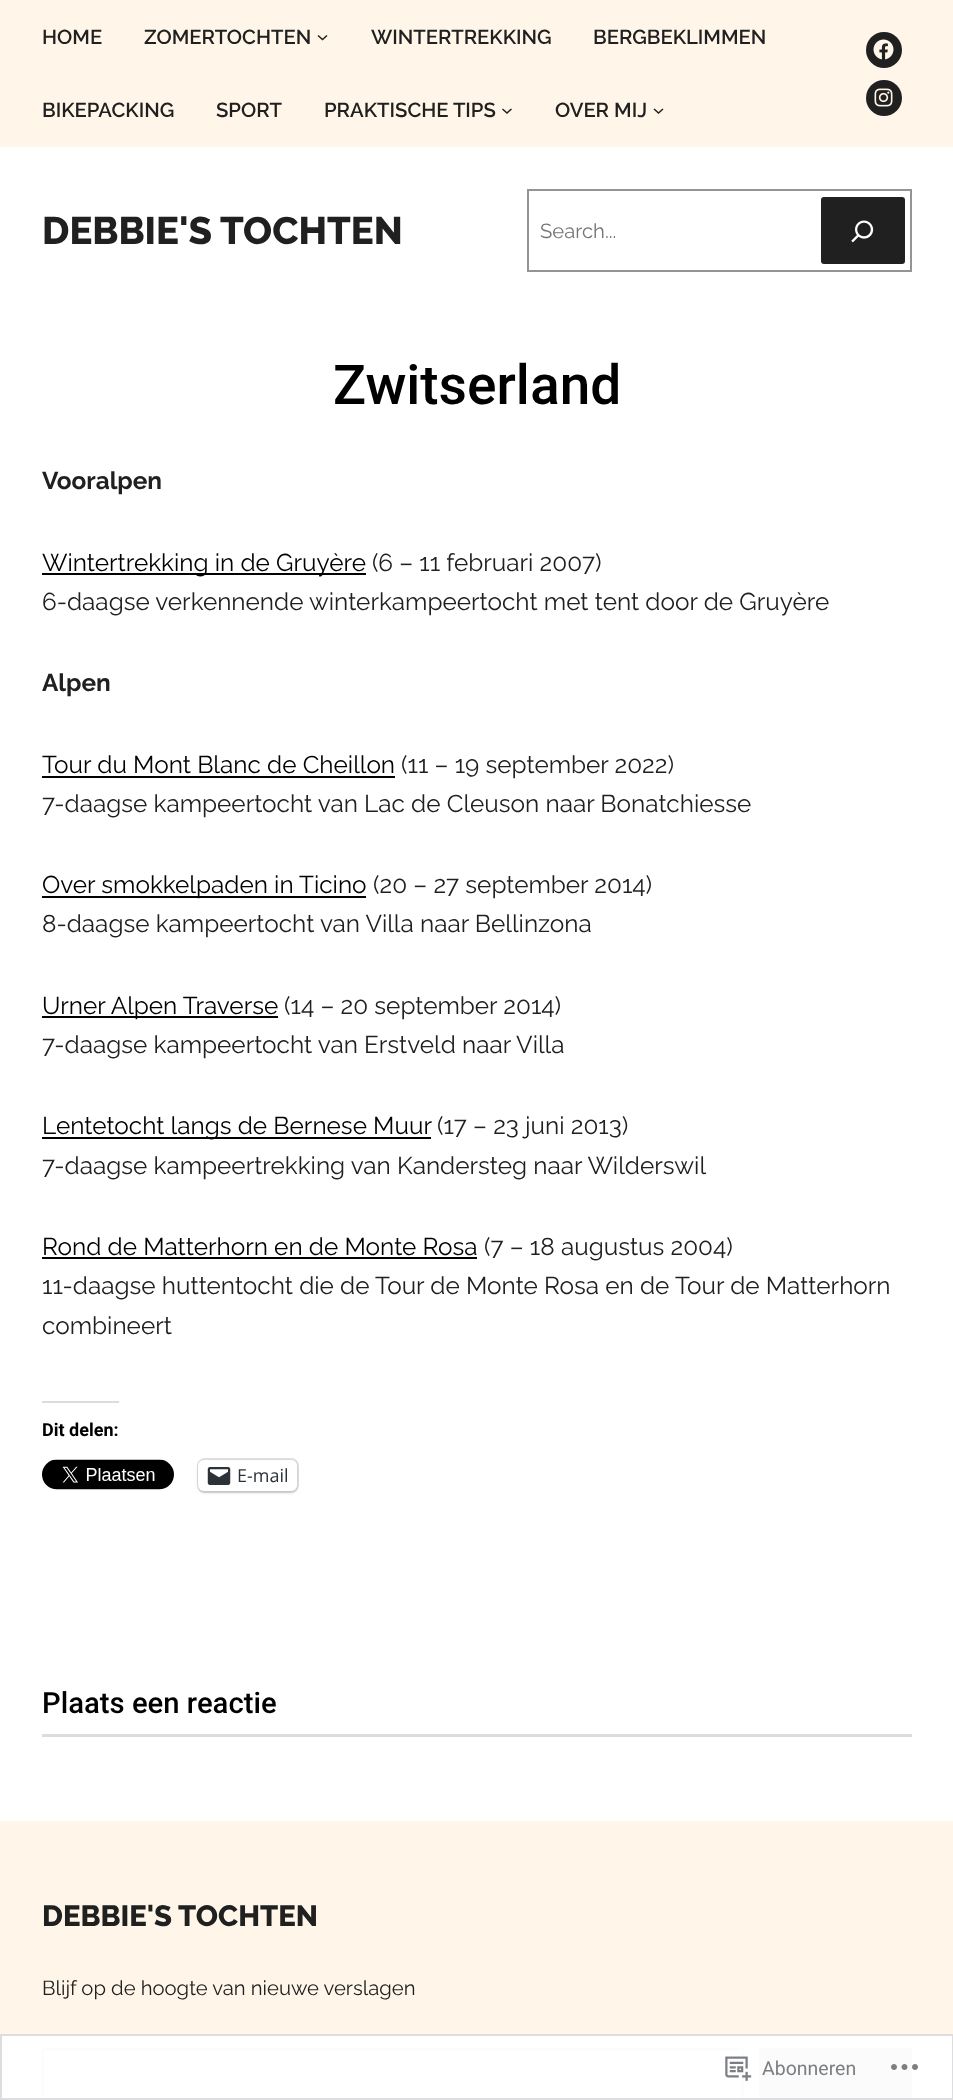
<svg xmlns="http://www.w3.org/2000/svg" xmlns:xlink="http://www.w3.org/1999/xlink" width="953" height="2100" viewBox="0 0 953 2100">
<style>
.cls-1{font:600 20.25px Raleway;fill:#202020}
.cls-2{font:800 38.25px Raleway;fill:#202020}
.cls-3{font:20.25px Raleway;fill:#757575}
.cls-4{font:500 55px Roboto;fill:#000000}
.cls-5{font:bold 24.35px Raleway;fill:#202020}
.cls-6{font:24.35px Raleway;fill:#000000}
.cls-7{font:24.35px Raleway;fill:#202020}
.cls-8{font:bold 18px Roboto;fill:#000000}
.cls-9{font:18px Open Sans;fill:#2c3338}
.cls-10{font:500 29.25px Roboto;fill:#000000}
.cls-11{font:800 29.25px Raleway;fill:#202020}
.cls-12{font:20.25px Raleway;fill:#202020}
.cls-13{font:19.5px Roboto;fill:#7b7f84}
</style>
<rect width="100%" height="100%" fill="#ffffff"/>
<rect fill="#fff6e9" x="0" y="0" width="953" height="147"/>
<path fill="none" stroke="#202020" stroke-width="1.5" d="M318 35.5L322.5 39.5L327 35.5"/>
<path fill="none" stroke="#202020" stroke-width="1.5" d="M502.5 109L507 113L511.5 109"/>
<path fill="none" stroke="#202020" stroke-width="1.5" d="M654 109L658.5 113L663 109"/>
<circle fill="#202020" cx="884" cy="50" r="18"/>
<image xlink:href="image0.png" x="873" y="39" width="21" height="21"/>
<circle fill="#202020" cx="884" cy="98" r="18"/>
<image xlink:href="image1.png" x="874" y="88" width="19" height="19"/>
<rect fill="none" stroke="#949494" stroke-width="2" x="528" y="190" width="383" height="81"/>
<rect fill="#202020" x="821" y="197" width="84" height="67" rx="3"/>
<image xlink:href="image2.png" x="851" y="220" width="23" height="23"/>
<rect fill="#000000" x="42" y="573" width="324" height="2"/>
<rect fill="#000000" x="42" y="776" width="353" height="2"/>
<rect fill="#000000" x="42" y="896" width="324" height="2"/>
<rect fill="#000000" x="42" y="1016" width="236" height="2"/>
<rect fill="#000000" x="42" y="1137" width="389" height="2"/>
<rect fill="#000000" x="42" y="1257" width="435" height="2"/>
<rect fill="#dcdcde" x="42" y="1401" width="77" height="2"/>
<image xlink:href="image3.png" x="42" y="1459" width="132" height="31"/>
<rect fill="none" stroke="#e0e0e0" stroke-width="2" x="198" y="1459" width="100" height="33" rx="7"/>
<rect fill="#000000" fill-opacity="0.12" filter="blur(1.5px)" x="198" y="1461" width="99" height="32" rx="6"/>
<rect fill="#ffffff" x="198" y="1460" width="99" height="31" rx="6"/>
<image xlink:href="image4.png" x="207" y="1467" width="24" height="18"/>
<rect fill="#dcdcde" x="42" y="1734" width="870" height="3"/>
<rect fill="#fff6e9" x="0" y="1821" width="953" height="213"/>
<rect fill="none" stroke="#fcfcfc" stroke-width="2" x="43" y="2049" width="700" height="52"/>
<rect fill="#fbfbfb" x="759" y="2048" width="153" height="52"/>
<rect fill="none" stroke="#dcdcde" stroke-opacity="0.98" stroke-width="2" x="1" y="2035" width="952" height="64"/>
<image xlink:href="image5.png" x="725" y="2056" width="27" height="25"/>
<image xlink:href="image6.png" x="891" y="2064" width="27" height="6"/>
<text class="cls-1" x="42" y="44">HOME</text>
<text class="cls-1" x="144" y="44">ZOMERTOCHTEN</text>
<text class="cls-1" x="371" y="44">WINTERTREKKING</text>
<text class="cls-1" x="593" y="44">BERGBEKLIMMEN</text>
<text class="cls-1" x="42" y="117">BIKEPACKING</text>
<text class="cls-1" x="216" y="117">SPORT</text>
<text class="cls-1" x="324" y="117">PRAKTISCHE TIPS</text>
<text class="cls-1" x="555" y="117">OVER MIJ</text>
<text class="cls-2" x="42" y="244">DEBBIE'S TOCHTEN</text>
<text class="cls-3" x="540" y="238">Search...</text>
<text class="cls-4" x="333" y="404">Zwitserland</text>
<text class="cls-5" x="42" y="489">Vooralpen</text>
<text class="cls-6" x="42" y="571">Wintertrekking in de Gruyère</text>
<text class="cls-7" x="372" y="571">(6 – 11 februari 2007)</text>
<text class="cls-7" x="42" y="610">6-daagse verkennende winterkampeertocht met tent door de Gruyère</text>
<text class="cls-5" x="42" y="691">Alpen</text>
<text class="cls-6" x="42" y="773">Tour du Mont Blanc de Cheillon</text>
<text class="cls-7" x="401" y="773">(11 – 19 september 2022)</text>
<text class="cls-7" x="42" y="812">7-daagse kampeertocht van Lac de Cleuson naar Bonatchiesse</text>
<text class="cls-6" x="42" y="893">Over smokkelpaden in Ticino</text>
<text class="cls-7" x="373" y="893">(20 – 27 september 2014)</text>
<text class="cls-7" x="42" y="932">8-daagse kampeertocht van Villa naar Bellinzona</text>
<text class="cls-6" x="42" y="1014">Urner Alpen Traverse</text>
<text class="cls-7" x="284" y="1014">(14 – 20 september 2014)</text>
<text class="cls-7" x="42" y="1053">7-daagse kampeertocht van Erstveld naar Villa</text>
<text class="cls-6" x="42" y="1134">Lentetocht langs de Bernese Muur</text>
<text class="cls-7" x="437" y="1134">(17 – 23 juni 2013)</text>
<text class="cls-7" x="42" y="1174">7-daagse kampeertrekking van Kandersteg naar Wilderswil</text>
<text class="cls-6" x="42" y="1255">Rond de Matterhorn en de Monte Rosa</text>
<text class="cls-7" x="484" y="1255">(7 – 18 augustus 2004)</text>
<text class="cls-7"><tspan x="42" y="1294">11-daagse huttentocht die de Tour de Monte Rosa en de Tour de Matterhorn</tspan><tspan x="42" y="1334">combineert</tspan></text>
<text class="cls-8" x="42" y="1436">Dit delen:</text>
<text class="cls-9" x="237" y="1482">E-mail</text>
<text class="cls-10" x="42" y="1713">Plaats een reactie</text>
<text class="cls-11" x="42" y="1926">DEBBIE'S TOCHTEN</text>
<text class="cls-12" x="42" y="1995">Blijf op de hoogte van nieuwe verslagen</text>
<text class="cls-13" x="762" y="2075">Abonneren</text>
</svg>
